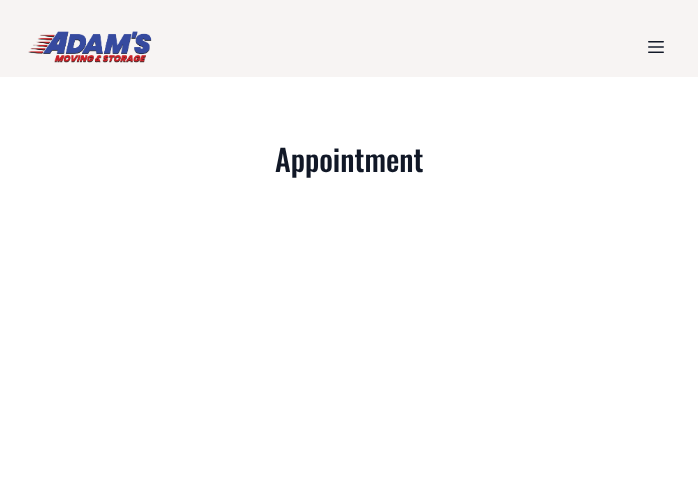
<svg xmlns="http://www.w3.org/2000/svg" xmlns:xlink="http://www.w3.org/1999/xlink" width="698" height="501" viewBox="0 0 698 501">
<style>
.cls-1{font:500 30px Oswald;fill:#111827}
</style>
<rect width="100%" height="100%" fill="#ffffff"/>
<rect fill="#f7f4f3" x="0" y="0" width="698" height="77"/>
<image xlink:href="image0.png" x="28" y="31" width="124" height="32"/>
<image xlink:href="image1.png" x="648" y="41" width="16" height="12"/>
<text class="cls-1" x="275" y="172">Appointment</text>
</svg>
